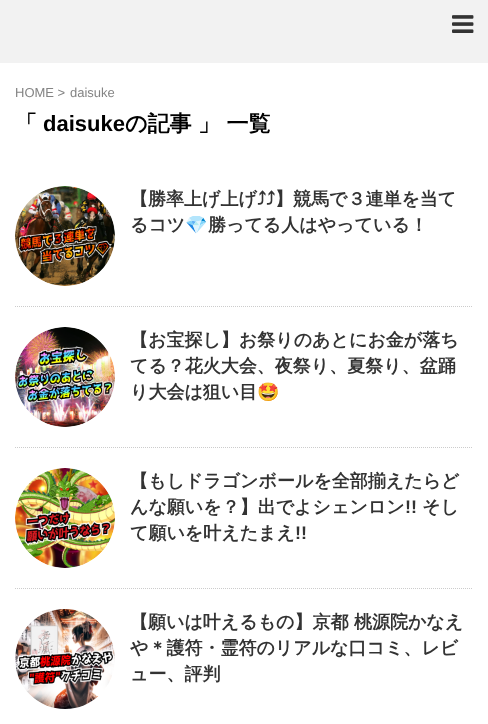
<svg xmlns="http://www.w3.org/2000/svg" xmlns:xlink="http://www.w3.org/1999/xlink" width="488" height="724" viewBox="0 0 488 724">
<style>
.cls-1{font:13px Liberation Sans;fill:#848484}
.cls-2{font:bold 22px WenQuanYi Zen Hei;fill:#000000}
.cls-3{font:bold 22px Liberation Sans;fill:#000000}
.cls-4{font:bold 18px WenQuanYi Zen Hei;fill:#333333}
.cls-5{font:bold 18px IPAPGothic;fill:#333333}
.cls-6{font:bold 18px Noto Color Emoji;fill:#333333}
.cls-7{font:bold 18px Liberation Sans;fill:#333333}
</style>
<rect width="100%" height="100%" fill="#f2f2f2"/>
<image xlink:href="image0.png" x="452" y="15" width="22" height="18"/>
<rect fill="#ffffff" x="0" y="63" width="488" height="661"/>
<path fill="none" stroke="#cccccc" stroke-dasharray="1 1" d="M15 306.5H473"/>
<image xlink:href="image1.png" x="15" y="186" width="100" height="100"/>
<path fill="none" stroke="#cccccc" stroke-dasharray="1 1" d="M15 447.5H473"/>
<image xlink:href="image2.png" x="15" y="327" width="100" height="100"/>
<path fill="none" stroke="#cccccc" stroke-dasharray="1 1" d="M15 588.5H473"/>
<image xlink:href="image3.png" x="15" y="468" width="100" height="100"/>
<image xlink:href="image4.png" x="15" y="609" width="100" height="100"/>
<text class="cls-1" x="15" y="97">HOME &gt;</text>
<text class="cls-1" x="70" y="97">daisuke</text>
<text class="cls-2" x="15" y="131">「</text>
<text class="cls-3" x="43" y="131">daisuke</text>
<text class="cls-2" x="125" y="131">の記事</text>
<text class="cls-2" x="198" y="131">」 一覧</text>
<text class="cls-4" x="130" y="205">【勝率上げ上げ</text>
<text class="cls-5" x="257" y="205">⤴⤴</text>
<text class="cls-4" x="275" y="205">】競馬で３連単を当て</text>
<text class="cls-4" x="130" y="231">るコツ</text>
<text class="cls-6" x="185" y="231">💎</text>
<text class="cls-4" x="208" y="231">勝ってる人はやっている！</text>
<text class="cls-4"><tspan x="130" y="346">【お宝探し】お祭りのあとにお金が落ち</tspan><tspan x="130" y="372">てる？花火大会、夜祭り、夏祭り、盆踊</tspan><tspan x="130" y="398">り大会は狙い目</tspan></text>
<text class="cls-6" x="257" y="398">🤩</text>
<text class="cls-4"><tspan x="130" y="487">【もしドラゴンボールを全部揃えたらど</tspan><tspan x="130" y="513">んな願いを？】出でよシェンロン</tspan></text>
<text class="cls-7" x="405" y="513">!!</text>
<text class="cls-4" x="422" y="513">そし</text>
<text class="cls-4" x="130" y="539">て願いを叶えたまえ</text>
<text class="cls-7" x="295" y="539">!!</text>
<text class="cls-4"><tspan x="130" y="628">【願いは叶えるもの】京都 桃源院かなえ</tspan><tspan x="130" y="654">や＊護符・霊符のリアルな口コミ、レビ</tspan><tspan x="130" y="680">ュー、評判</tspan></text>
</svg>
